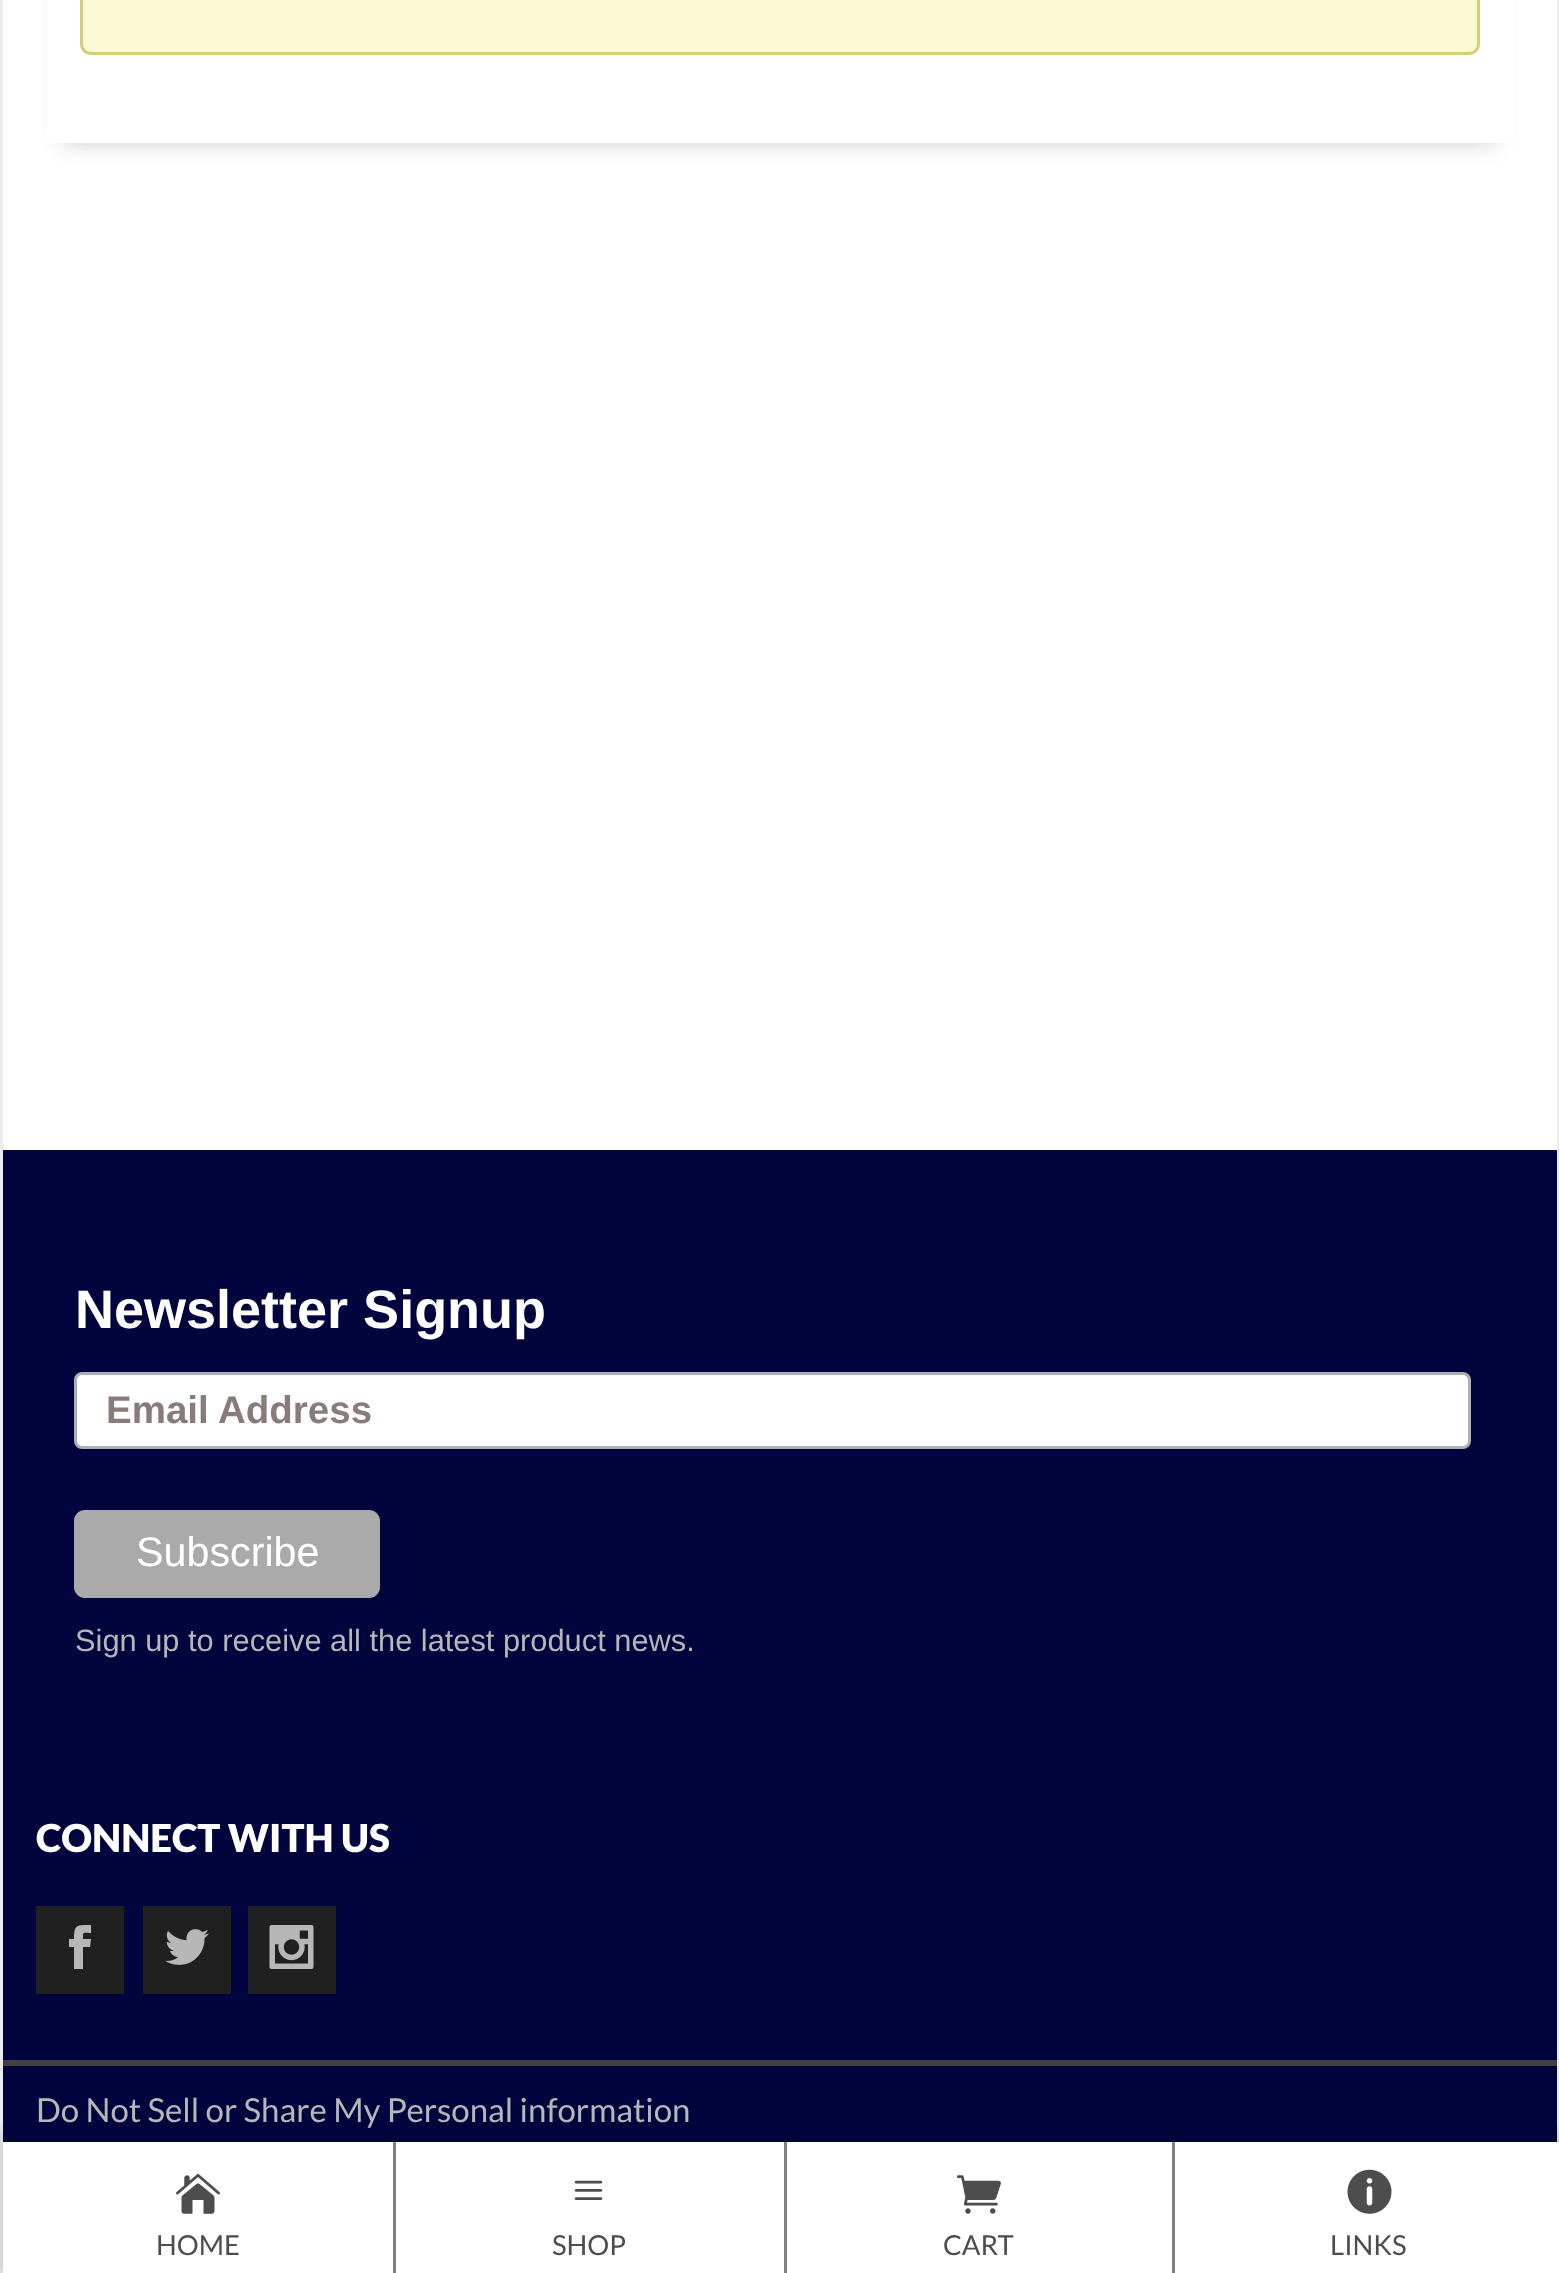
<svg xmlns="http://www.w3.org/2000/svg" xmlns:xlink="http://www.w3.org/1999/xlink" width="1559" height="2273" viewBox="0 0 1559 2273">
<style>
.cls-1{font:bold 54px Liberation Sans;fill:#ffffff}
.cls-2{font:bold 38.5px Liberation Sans;fill:#8a7b7b}
.cls-3{font:41.25px Liberation Sans;fill:#ffffff}
.cls-4{font:30.8px Liberation Sans;fill:#b7b7b7}
.cls-5{font:900 38.5px Lato;fill:#ffffff}
.cls-6{font:33px Lato;fill:#b7b7b7}
.cls-7{font:27.5px Lato;fill:#4d4d4d}
</style>
<rect width="100%" height="100%" fill="#ffffff"/>
<rect fill="#ebebeb" x="1557" y="0" width="2" height="2142"/>
<rect fill="#ebebeb" x="0" y="0" width="3" height="2273"/>
<rect fill="#000000" fill-opacity="0.2" filter="blur(11px)" x="63" y="-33" width="1433" height="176"/>
<rect fill="#ffffff" x="47" y="0" width="1466" height="143"/>
<rect fill="#f9f9d5" stroke="#d6cd77" stroke-width="3" x="81.5" y="-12.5" width="1397" height="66" rx="9.5"/>
<rect fill="#00053e" x="3" y="1150" width="1554" height="910"/>
<rect fill="#ffffff" stroke="#abb0b2" stroke-width="3" x="75.5" y="1373.5" width="1394" height="74" rx="6.5"/>
<rect fill="#aaaaaa" x="74" y="1510" width="306" height="88" rx="11"/>
<rect fill="#202020" x="36" y="1906" width="88" height="88"/>
<path fill="#b7b7b7" d="M74 1969V1947H69V1939H74C74 1924 77 1925 91 1925V1933C83 1933 83 1931 83 1939H91L90 1947H83V1969Z"/>
<rect fill="#202020" x="143" y="1906" width="88" height="88"/>
<image xlink:href="image0.png" x="165" y="1929" width="44" height="36"/>
<rect fill="#202020" x="248" y="1906" width="88" height="88"/>
<image xlink:href="image1.png" x="269" y="1925" width="45" height="44"/>
<rect fill="#00053e" x="3" y="2066" width="1554" height="76"/>
<rect fill="#414141" x="3" y="2060" width="1554" height="6"/>
<rect fill="#000000" fill-opacity="0.1" filter="blur(5.5px)" x="-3" y="2131" width="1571" height="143"/>
<rect fill="#ffffff" x="3" y="2142" width="1556" height="131"/>
<image xlink:href="image2.png" x="176" y="2173" width="44" height="41"/>
<rect fill="#818181" x="393" y="2142" width="3" height="131"/>
<image xlink:href="image3.png" x="574" y="2180" width="29" height="20"/>
<rect fill="#818181" x="784" y="2142" width="3" height="131"/>
<image xlink:href="image4.png" x="956" y="2175" width="45" height="39"/>
<rect fill="#818181" x="1172" y="2142" width="3" height="131"/>
<image xlink:href="image5.png" x="1347" y="2169" width="45" height="45"/>
<text class="cls-1" x="75" y="1328">Newsletter Signup</text>
<text class="cls-2" x="106" y="1423">Email Address</text>
<text class="cls-3" x="136" y="1566">Subscribe</text>
<text class="cls-4" x="75" y="1651">Sign up to receive all the latest product news.</text>
<text class="cls-5" x="36" y="1852">CONNECT WITH US</text>
<text class="cls-6" x="36" y="2122">Do Not Sell or Share My Personal information</text>
<text class="cls-7" x="156" y="2255">HOME</text>
<text class="cls-7" x="552" y="2255">SHOP</text>
<text class="cls-7" x="943" y="2255">CART</text>
<text class="cls-7" x="1330" y="2255">LINKS</text>
</svg>
